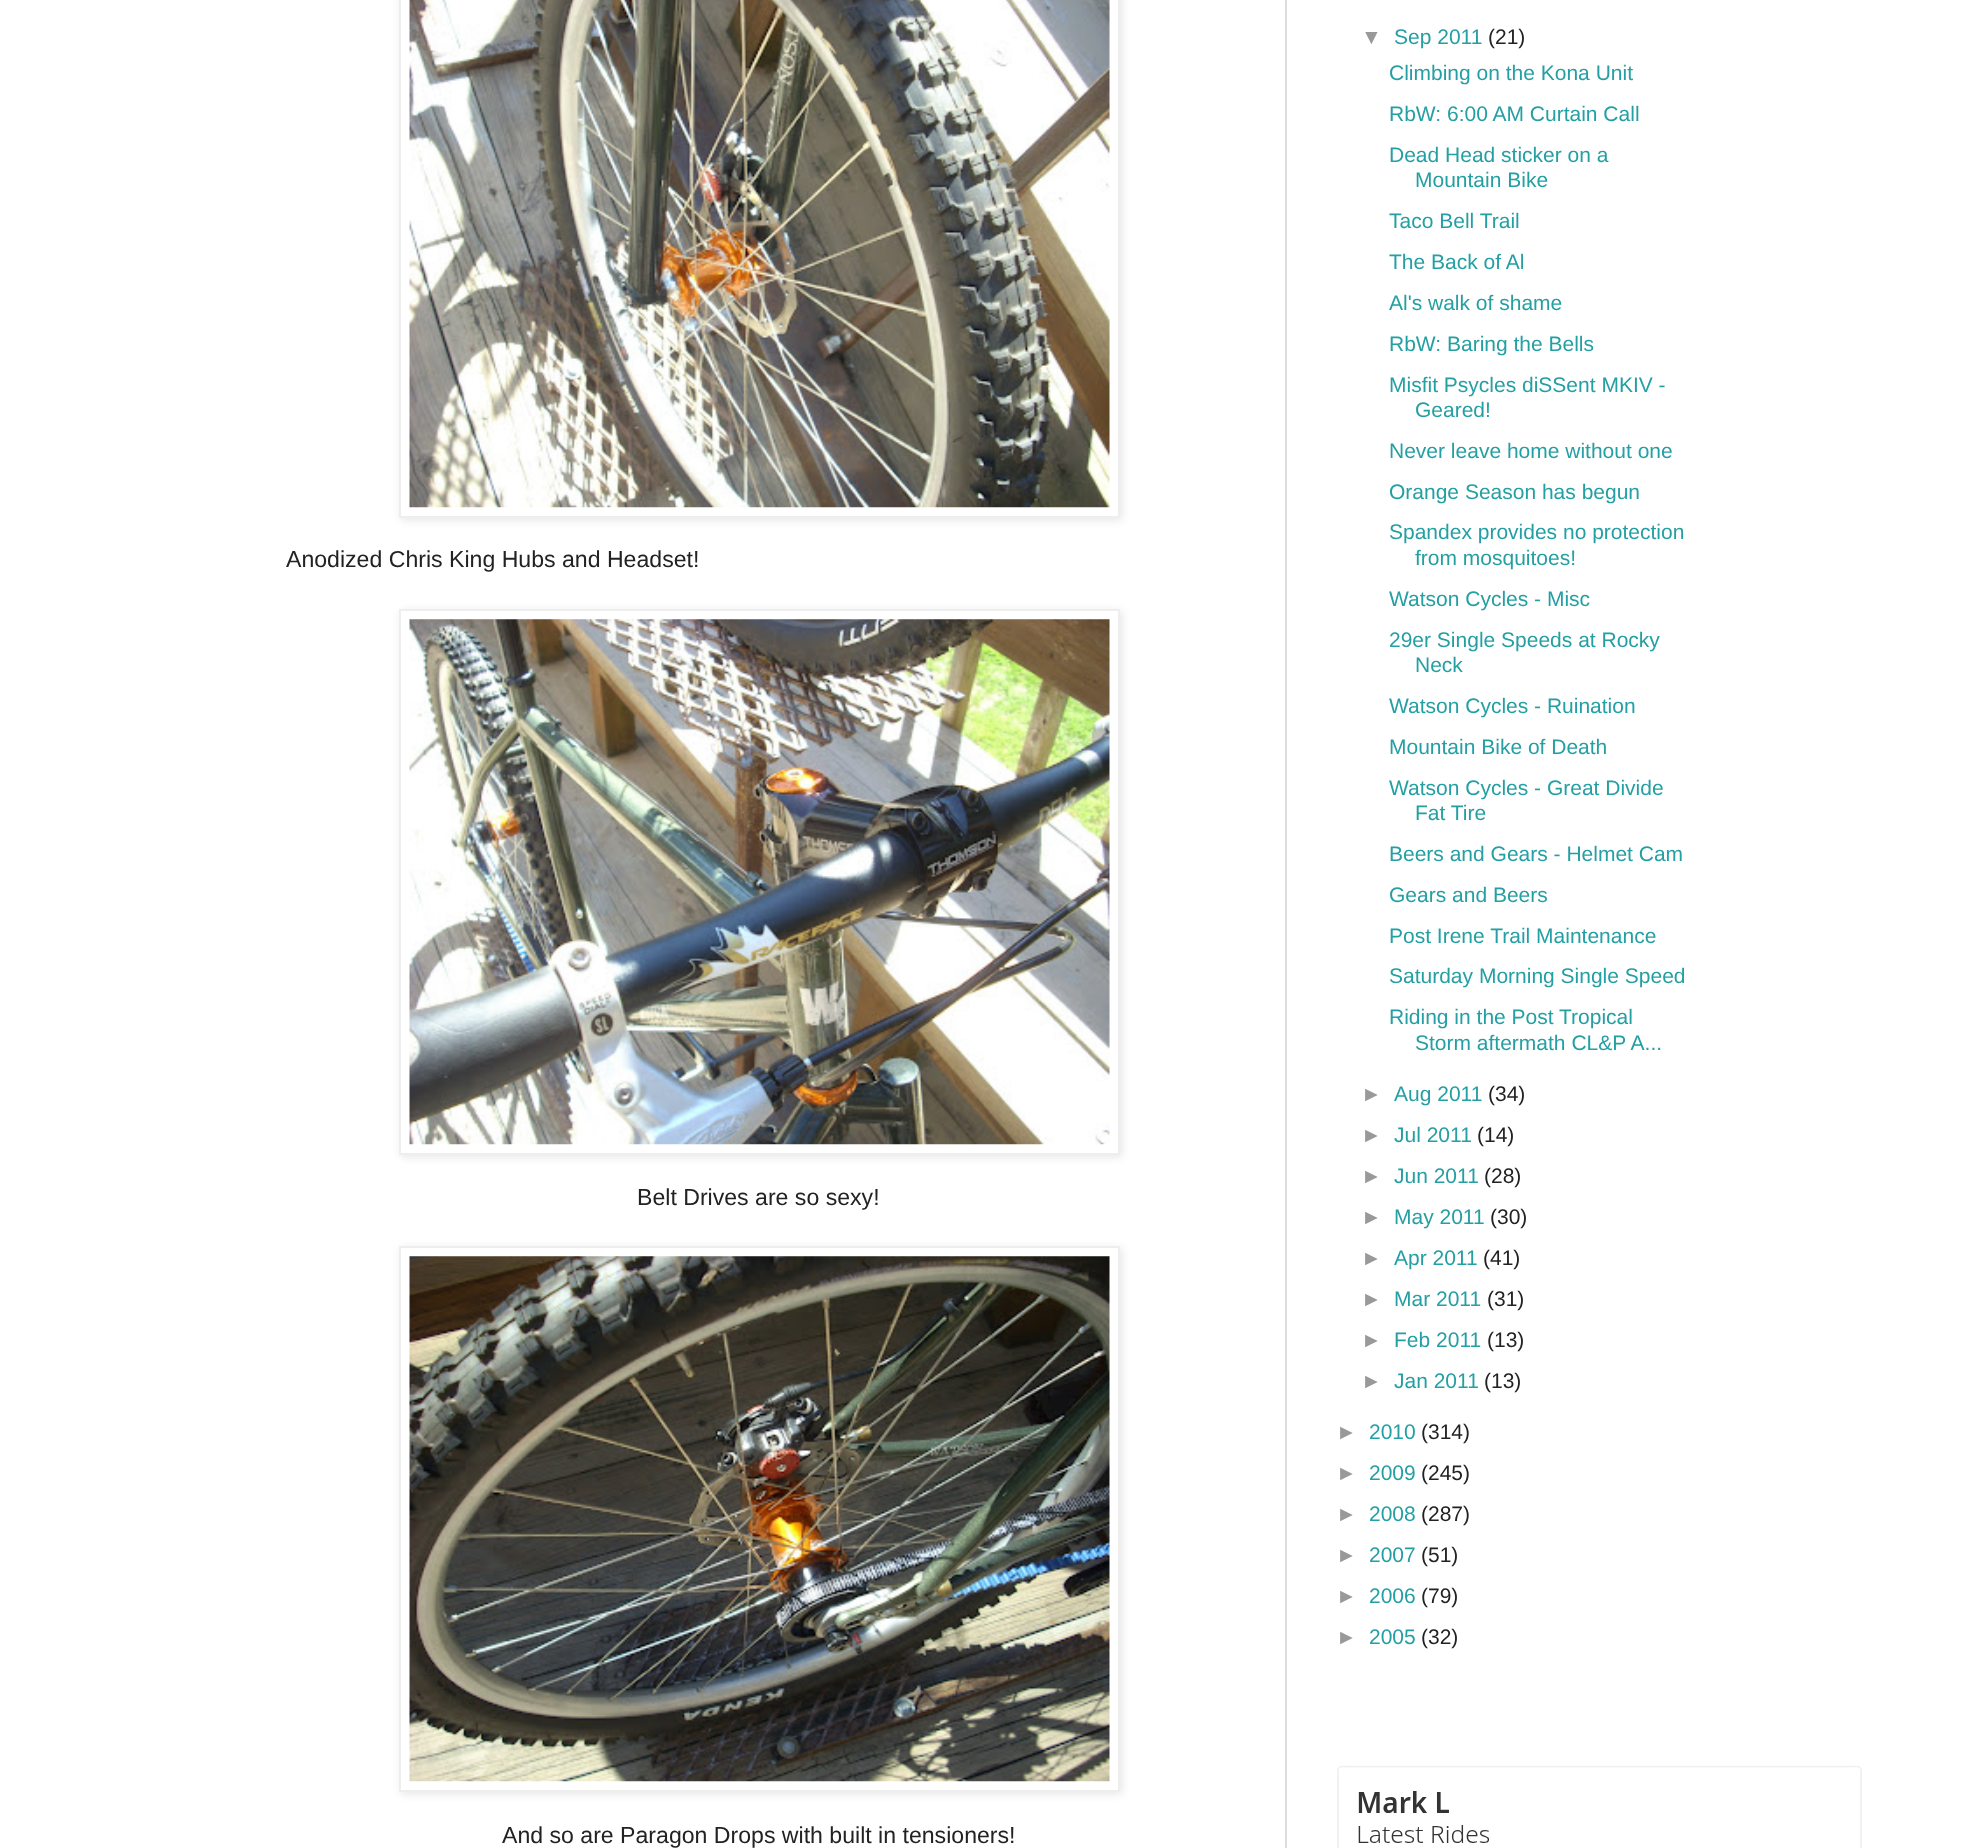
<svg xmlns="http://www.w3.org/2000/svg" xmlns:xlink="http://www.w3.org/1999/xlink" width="1971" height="1848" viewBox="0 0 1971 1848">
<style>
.cls-1{font:23.1px Liberation Sans;fill:#222222}
.cls-2{font:21px Liberation Sans;fill:#999999}
.cls-3{font:21px Liberation Sans;fill:#249fa3}
.cls-4{font:21px Liberation Sans;fill:#222222}
</style>
<defs>
<clipPath id="clip1"><path d="M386 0H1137V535H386ZM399-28H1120V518H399Z" clip-rule="evenodd"/></clipPath>
<clipPath id="clip2"><path d="M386 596H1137V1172H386ZM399 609H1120V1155H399Z" clip-rule="evenodd"/></clipPath>
<clipPath id="clip3"><path d="M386 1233H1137V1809H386ZM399 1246H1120V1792H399Z" clip-rule="evenodd"/></clipPath>
</defs>
<rect width="100%" height="100%" fill="#ffffff"/>
<rect fill="#dddddd" x="1285" y="0" width="2" height="1848"/>
<g clip-path="url(#clip1)">
<rect fill="#000000" fill-opacity="0.1" filter="blur(4.5px)" x="401" y="-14" width="721" height="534"/>
</g>
<rect fill="none" stroke="#eeeeee" stroke-width="2" x="400" y="-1" width="719" height="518"/>
<image xlink:href="image0.png" x="409" y="0" width="701" height="508"/>
<g clip-path="url(#clip2)">
<rect fill="#000000" fill-opacity="0.1" filter="blur(4.5px)" x="401" y="611" width="721" height="546"/>
</g>
<rect fill="none" stroke="#eeeeee" stroke-width="2" x="400" y="610" width="719" height="544"/>
<image xlink:href="image1.png" x="409" y="619" width="701" height="526"/>
<g clip-path="url(#clip3)">
<rect fill="#000000" fill-opacity="0.1" filter="blur(4.5px)" x="401" y="1248" width="721" height="546"/>
</g>
<rect fill="none" stroke="#eeeeee" stroke-width="2" x="400" y="1247" width="719" height="544"/>
<image xlink:href="image2.png" x="409" y="1256" width="701" height="526"/>
<image xlink:href="image3.png" x="1337" y="1765" width="525" height="83"/>
<text class="cls-1" x="286" y="567">Anodized Chris King Hubs and Headset!</text>
<text class="cls-1" x="637" y="1205">Belt Drives are so sexy!</text>
<text class="cls-1" x="502" y="1843">And so are Paragon Drops with built in tensioners!</text>
<text class="cls-2" x="1361" y="44">▼</text>
<text class="cls-3" x="1394" y="44">Sep 2011</text>
<text class="cls-4" x="1488" y="44">(21)</text>
<text class="cls-3"><tspan x="1389" y="80">Climbing on the Kona Unit</tspan><tspan x="1389" y="121">RbW: 6:00 AM Curtain Call</tspan><tspan x="1389" y="162">Dead Head sticker on a</tspan></text>
<text class="cls-3" x="1415" y="187">Mountain Bike</text>
<text class="cls-3"><tspan x="1389" y="228">Taco Bell Trail</tspan><tspan x="1389" y="269">The Back of Al</tspan><tspan x="1389" y="310">Al's walk of shame</tspan><tspan x="1389" y="351">RbW: Baring the Bells</tspan><tspan x="1389" y="392">Misfit Psycles diSSent MKIV -</tspan></text>
<text class="cls-3" x="1415" y="417">Geared!</text>
<text class="cls-3"><tspan x="1389" y="458">Never leave home without one</tspan><tspan x="1389" y="499">Orange Season has begun</tspan><tspan x="1389" y="539">Spandex provides no protection</tspan></text>
<text class="cls-3" x="1415" y="565">from mosquitoes!</text>
<text class="cls-3"><tspan x="1389" y="606">Watson Cycles - Misc</tspan><tspan x="1389" y="647">29er Single Speeds at Rocky</tspan></text>
<text class="cls-3" x="1415" y="672">Neck</text>
<text class="cls-3"><tspan x="1389" y="713">Watson Cycles - Ruination</tspan><tspan x="1389" y="754">Mountain Bike of Death</tspan><tspan x="1389" y="795">Watson Cycles - Great Divide</tspan></text>
<text class="cls-3" x="1415" y="820">Fat Tire</text>
<text class="cls-3"><tspan x="1389" y="861">Beers and Gears - Helmet Cam</tspan><tspan x="1389" y="902">Gears and Beers</tspan><tspan x="1389" y="943">Post Irene Trail Maintenance</tspan><tspan x="1389" y="983">Saturday Morning Single Speed</tspan><tspan x="1389" y="1024">Riding in the Post Tropical</tspan></text>
<text class="cls-3" x="1415" y="1050">Storm aftermath CL&amp;P A...</text>
<text class="cls-2" x="1361" y="1101">►</text>
<text class="cls-3" x="1394" y="1101">Aug 2011</text>
<text class="cls-4" x="1488" y="1101">(34)</text>
<text class="cls-2" x="1361" y="1142">►</text>
<text class="cls-3" x="1394" y="1142">Jul 2011</text>
<text class="cls-4" x="1477" y="1142">(14)</text>
<text class="cls-2" x="1361" y="1183">►</text>
<text class="cls-3" x="1394" y="1183">Jun 2011</text>
<text class="cls-4" x="1484" y="1183">(28)</text>
<text class="cls-2" x="1361" y="1224">►</text>
<text class="cls-3" x="1394" y="1224">May 2011</text>
<text class="cls-4" x="1490" y="1224">(30)</text>
<text class="cls-2" x="1361" y="1265">►</text>
<text class="cls-3" x="1394" y="1265">Apr 2011</text>
<text class="cls-4" x="1483" y="1265">(41)</text>
<text class="cls-2" x="1361" y="1306">►</text>
<text class="cls-3" x="1394" y="1306">Mar 2011</text>
<text class="cls-4" x="1487" y="1306">(31)</text>
<text class="cls-2" x="1361" y="1347">►</text>
<text class="cls-3" x="1394" y="1347">Feb 2011</text>
<text class="cls-4" x="1487" y="1347">(13)</text>
<text class="cls-2" x="1361" y="1388">►</text>
<text class="cls-3" x="1394" y="1388">Jan 2011</text>
<text class="cls-4" x="1484" y="1388">(13)</text>
<text class="cls-2" x="1336" y="1439">►</text>
<text class="cls-3" x="1369" y="1439">2010</text>
<text class="cls-4" x="1421" y="1439">(314)</text>
<text class="cls-2" x="1336" y="1480">►</text>
<text class="cls-3" x="1369" y="1480">2009</text>
<text class="cls-4" x="1421" y="1480">(245)</text>
<text class="cls-2" x="1336" y="1521">►</text>
<text class="cls-3" x="1369" y="1521">2008</text>
<text class="cls-4" x="1421" y="1521">(287)</text>
<text class="cls-2" x="1336" y="1562">►</text>
<text class="cls-3" x="1369" y="1562">2007</text>
<text class="cls-4" x="1421" y="1562">(51)</text>
<text class="cls-2" x="1336" y="1603">►</text>
<text class="cls-3" x="1369" y="1603">2006</text>
<text class="cls-4" x="1421" y="1603">(79)</text>
<text class="cls-2" x="1336" y="1644">►</text>
<text class="cls-3" x="1369" y="1644">2005</text>
<text class="cls-4" x="1421" y="1644">(32)</text>
</svg>
